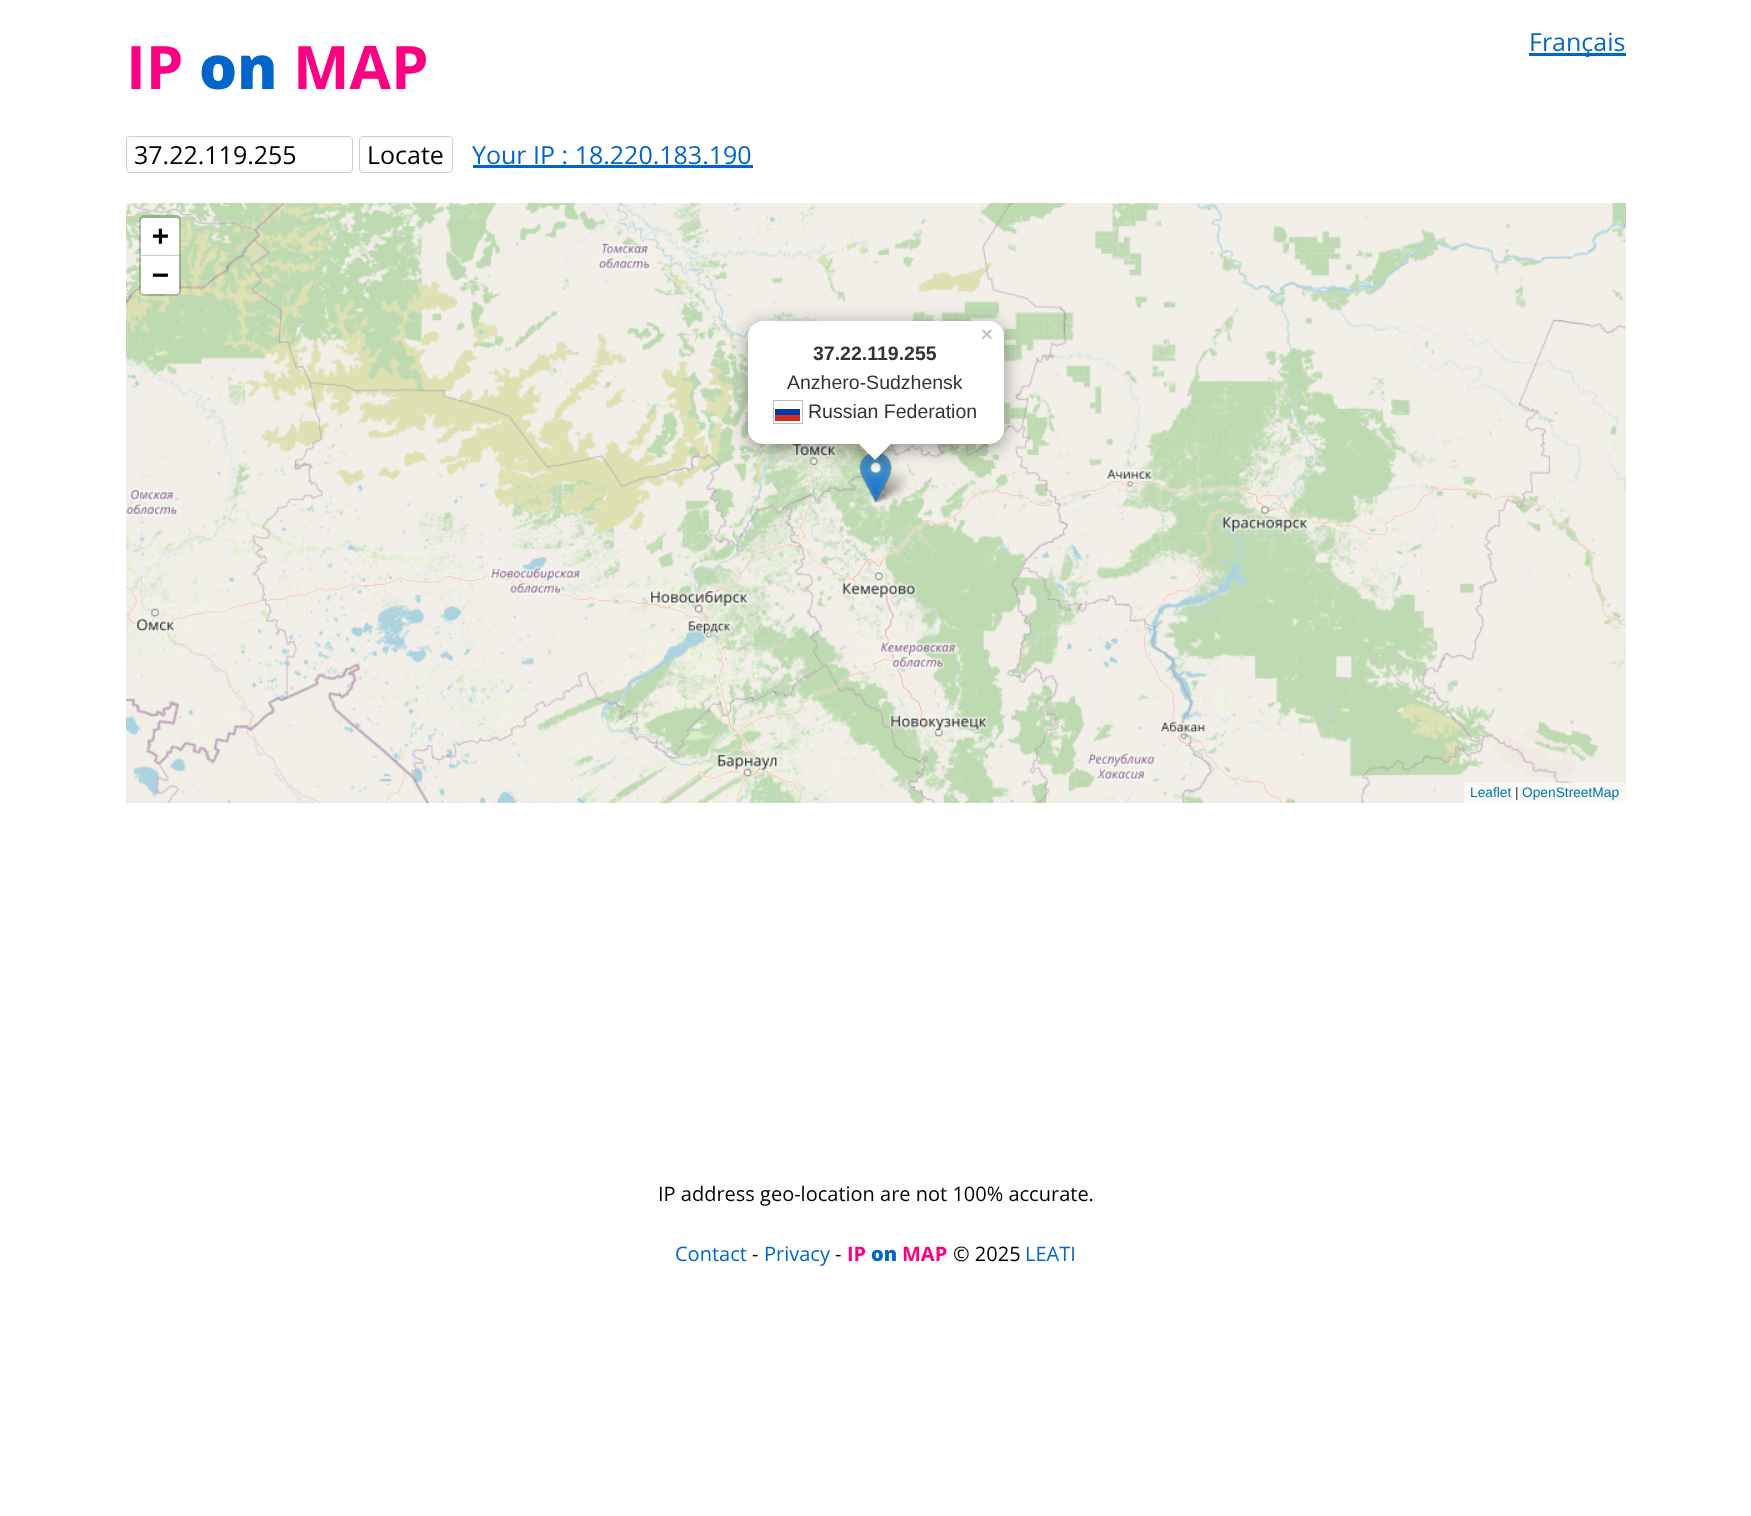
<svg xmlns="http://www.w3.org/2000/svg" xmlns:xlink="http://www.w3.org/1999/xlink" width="1751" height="1516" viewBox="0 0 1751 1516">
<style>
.cls-1{font:bold 60px Open Sans;fill:#fc0082}
.cls-2{font:800 60px Open Sans;fill:#0066cc}
.cls-3{font:25px Open Sans;fill:#0066cc}
.cls-4{font:25px Open Sans;fill:#000000}
.cls-5{font:bold 28px DejaVu Sans Mono;fill:#000000}
.cls-6{font:13.75px Liberation Sans;fill:#0078a8}
.cls-7{font:13.75px Liberation Sans;fill:#333333}
.cls-8{font:bold 20px Liberation Sans;fill:#c3c3c3}
.cls-9{font:bold 19.5px Liberation Sans;fill:#333333}
.cls-10{font:19.5px Liberation Sans;fill:#333333}
.cls-11{font:20px Open Sans;fill:#000000}
.cls-12{font:20px Open Sans;fill:#0066cc}
.cls-13{font:bold 20px Open Sans;fill:#fc0082}
.cls-14{font:800 20px Open Sans;fill:#0066cc}
</style>
<defs>
<clipPath id="clip1"><rect x="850" y="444" width="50" height="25"/></clipPath>
<clipPath id="clip2"><rect x="850" y="444" width="50" height="25"/></clipPath>
</defs>
<rect width="100%" height="100%" fill="#ffffff"/>
<rect fill="#0066cc" x="1529" y="53" width="97" height="3"/>
<rect fill="none" stroke="#ccccdd" x="126.5" y="136.5" width="226" height="36" rx="3.5"/>
<rect fill="none" stroke="#ccccdd" x="359.5" y="136.5" width="93" height="36" rx="3.5"/>
<rect fill="#0066cc" x="473" y="165" width="280" height="3"/>
<rect fill="#dddddd" x="141" y="203" width="1281" height="600"/>
<image xlink:href="image6.png" x="126" y="214" width="15" height="320"/>
<image xlink:href="image9.png" x="781" y="213" width="321" height="321"/>
<image xlink:href="image8.png" x="461" y="213" width="321" height="321"/>
<image xlink:href="image7.png" x="141" y="213" width="321" height="321"/>
<rect fill="none" stroke="#000000" stroke-opacity="0.2" stroke-width="3" x="140.5" y="216.5" width="39" height="78" rx="3.5"/>
<path fill="#ffffff" d="M143.5 218H176.5C178 218 179 219 179 220.5V256H141V220.5C141 219 142 218 143.5 218Z"/>
<rect fill="#cccccc" x="141" y="255" width="38" height="1"/>
<path fill="#ffffff" d="M141 256H179V291.5C179 293 178 294 176.5 294H143.5C142 294 141 293 141 291.5Z"/>
<image xlink:href="image17.png" x="1421" y="534" width="205" height="269"/>
<rect fill="#ffffff" fill-opacity="0.7" x="1464" y="783" width="162" height="20"/>
<image xlink:href="image0.png" x="126" y="203" width="15" height="11"/>
<image xlink:href="image1.png" x="141" y="203" width="320" height="11"/>
<image xlink:href="image2.png" x="461" y="203" width="320" height="11"/>
<image xlink:href="image3.png" x="781" y="203" width="320" height="11"/>
<image xlink:href="image10.png" x="1101" y="213" width="321" height="321"/>
<image xlink:href="image4.png" x="1101" y="203" width="320" height="11"/>
<image xlink:href="image5.png" x="1421" y="203" width="205" height="11"/>
<image xlink:href="image11.png" x="1421" y="214" width="205" height="320"/>
<image xlink:href="image12.png" x="126" y="534" width="15" height="269"/>
<image xlink:href="image13.png" x="141" y="534" width="320" height="269"/>
<image xlink:href="image14.png" x="461" y="534" width="320" height="269"/>
<image xlink:href="image15.png" x="781" y="534" width="320" height="269"/>
<image xlink:href="image16.png" x="1101" y="534" width="320" height="269"/>
<image xlink:href="image19.png" x="871" y="467" width="37" height="36"/>
<image xlink:href="image18.png" x="859" y="452" width="33" height="51"/>
<rect fill="#000000" fill-opacity="0.4" filter="blur(9px)" x="748" y="325" width="256" height="123" rx="15"/>
<rect fill="#ffffff" x="748" y="321" width="256" height="123" rx="15"/>
<rect fill="none" stroke="#bbbbbb" x="773.5" y="400.5" width="29" height="23"/>
<rect fill="#0039a6" x="775" y="409" width="25" height="6"/>
<rect fill="#d52b1e" x="775" y="415" width="25" height="6"/>
<g clip-path="url(#clip1)">
<rect fill="#000000" fill-opacity="0.4" filter="blur(9px)" x="864" y="435" width="24" height="24"/>
</g>
<g clip-path="url(#clip2)">
<path fill="#ffffff" d="M875 426.5L892 443L875 460L858 443Z"/>
</g>
<text class="cls-1" x="126" y="89">IP</text>
<text class="cls-2" x="199" y="89">on</text>
<text class="cls-1" x="293" y="89">MAP</text>
<text class="cls-3" x="1529" y="51">Français</text>
<text class="cls-4" x="134" y="164">37.22.119.255</text>
<text class="cls-4" x="367" y="164">Locate</text>
<text class="cls-3" x="472" y="164">Your IP : 18.220.183.190</text>
<text class="cls-5"><tspan x="152" y="245">+</tspan><tspan x="152" y="284">−</tspan></text>
<text class="cls-6" x="1470" y="797">Leaflet</text>
<text class="cls-7" x="1515" y="797">|</text>
<text class="cls-6" x="1522" y="797">OpenStreetMap</text>
<text class="cls-8" x="981" y="341">×</text>
<text class="cls-9" x="813" y="360">37.22.119.255</text>
<text class="cls-10" x="787" y="389">Anzhero-Sudzhensk</text>
<text class="cls-10" x="808" y="418">Russian Federation</text>
<text class="cls-11" x="658" y="1201">IP address geo-location are not 100% accurate.</text>
<text class="cls-12" x="675" y="1261">Contact</text>
<text class="cls-11" x="752" y="1261">-</text>
<text class="cls-12" x="764" y="1261">Privacy</text>
<text class="cls-11" x="835" y="1261">-</text>
<text class="cls-13" x="847" y="1261">IP</text>
<text class="cls-14" x="871" y="1261">on</text>
<text class="cls-13" x="902" y="1261">MAP</text>
<text class="cls-11" x="953" y="1261">© 2025</text>
<text class="cls-12" x="1025" y="1261">LEATI</text>
</svg>
